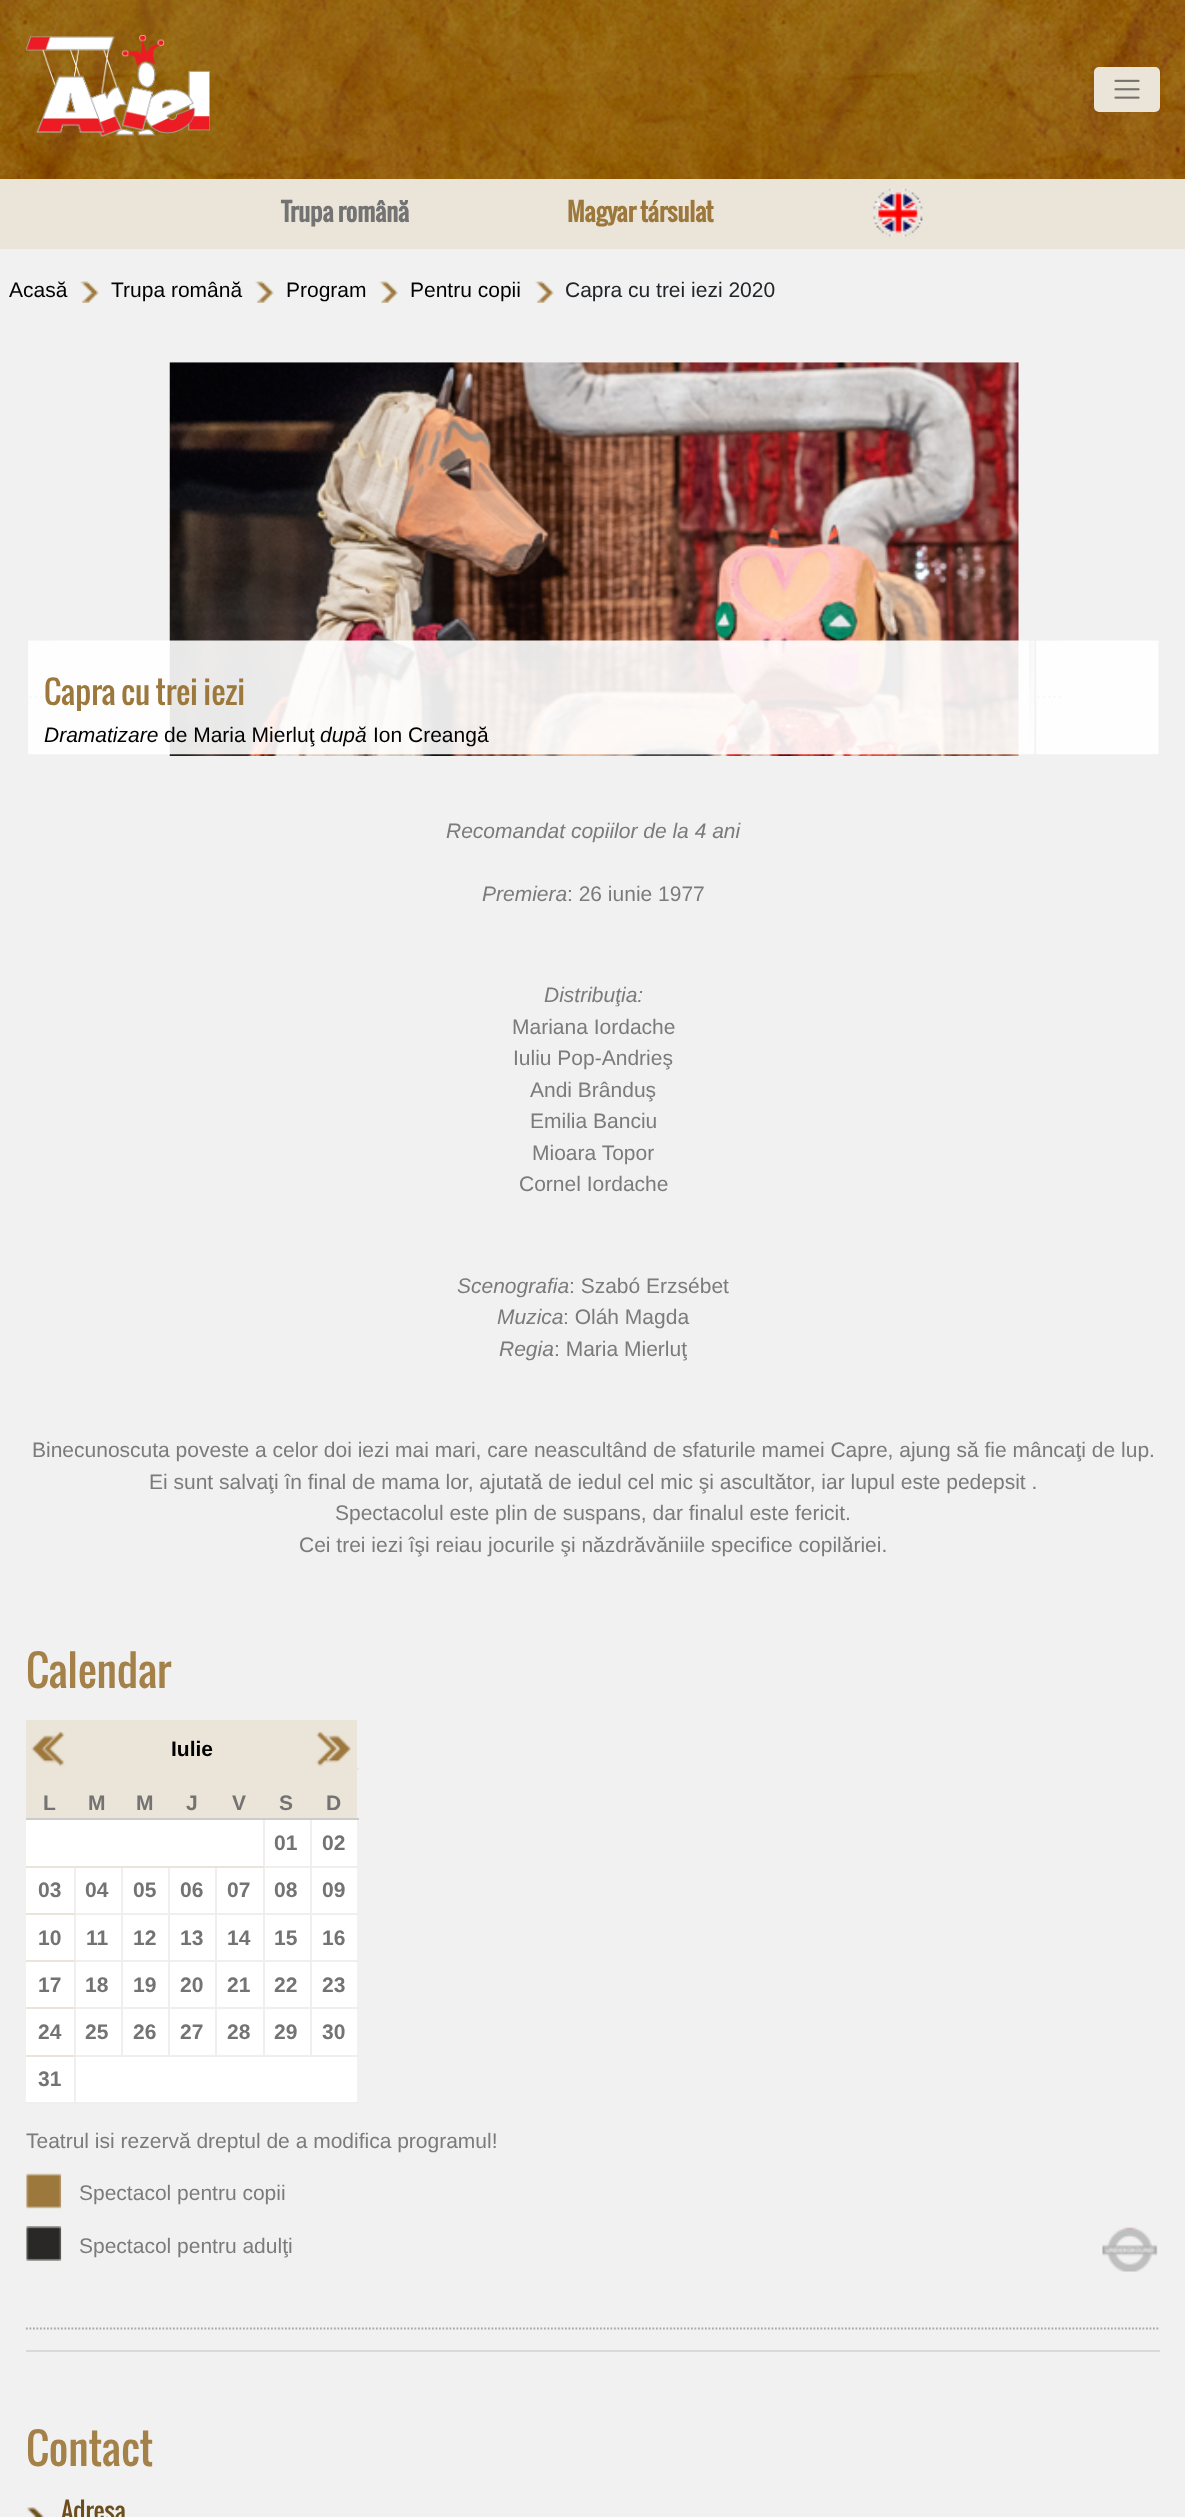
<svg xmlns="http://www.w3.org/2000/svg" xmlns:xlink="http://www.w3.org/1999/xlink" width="1185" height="2517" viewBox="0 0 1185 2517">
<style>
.cls-1{font:bold 24.5px Oswald;fill:#737373}
.cls-2{font:bold 24.5px Oswald;fill:#9d783c}
.cls-3{font:21px Liberation Sans;fill:#000000}
.cls-4{font:21px Liberation Sans;fill:#212529}
.cls-5{font:31.5px Oswald;fill:#9d783c}
.cls-6{font:italic 21px Liberation Sans;fill:#000000}
.cls-7{font:italic 21px Liberation Sans;fill:#7b7b7b}
.cls-8{font:21px Liberation Sans;fill:#7b7b7b}
.cls-9{font:42px Oswald;fill:#a38148}
.cls-10{font:bold 21px Liberation Sans;fill:#000000}
.cls-11{font:bold 21px Liberation Sans;fill:#737373}
.cls-12{font:24.5px Oswald;fill:#6c4e1d}
</style>
<rect width="100%" height="100%" fill="#f1f1f1"/>
<image xlink:href="image0.png" x="0" y="0" width="1185" height="179"/>
<image xlink:href="image1.png" x="26" y="35" width="184" height="102"/>
<rect fill="#eae4d9" stroke="#eae4d9" stroke-width="2" x="1095" y="68" width="64" height="43" rx="4"/>
<image xlink:href="image2.png" x="1114" y="79" width="26" height="20"/>
<rect fill="#eae4d9" x="0" y="179" width="1185" height="70"/>
<image xlink:href="image3.png" x="873" y="188" width="50" height="49"/>
<image xlink:href="image4.png" x="80" y="281" width="19" height="22"/>
<image xlink:href="image4.png" x="255" y="281" width="19" height="22"/>
<image xlink:href="image5.png" x="379" y="281" width="19" height="22"/>
<image xlink:href="image4.png" x="535" y="281" width="19" height="22"/>
<image xlink:href="image6.png" x="169" y="362" width="850" height="394"/>
<image xlink:href="image7.png" x="28" y="640" width="1131" height="115"/>
<path fill="none" stroke="#a8a8a8" stroke-width="1.8" stroke-dasharray="1.75 1.75" d="M26 2328.5H1160"/>
<rect fill="#eae4d9" x="26" y="1720" width="331" height="98"/>
<image xlink:href="image8.png" x="31" y="1731" width="34" height="36"/>
<rect fill="#eae4d9" x="357" y="1768" width="2" height="2"/>
<image xlink:href="image9.png" x="316" y="1732" width="35" height="35"/>
<rect fill="#f1efee" x="76" y="1913" width="283" height="2"/>
<rect fill="#f1efee" x="76" y="1960" width="283" height="2"/>
<rect fill="#f1efee" x="76" y="2007" width="283" height="2"/>
<rect fill="#f1efee" x="76" y="2055" width="283" height="2"/>
<rect fill="#f1efee" x="263" y="1818" width="2" height="238"/>
<rect fill="#f1efee" x="265" y="1866" width="94" height="2"/>
<rect fill="#f1efee" x="310" y="1818" width="2" height="238"/>
<rect fill="#cccccc" x="26" y="1818" width="333" height="2"/>
<rect fill="#ffffff" x="26" y="1820" width="237" height="46"/>
<rect fill="#f1efee" x="121" y="1866" width="2" height="190"/>
<rect fill="#f1efee" x="168" y="1866" width="2" height="190"/>
<rect fill="#f1efee" x="215" y="1866" width="2" height="190"/>
<rect fill="#f1efee" x="26" y="2102" width="333" height="2"/>
<rect fill="#f1efee" x="74" y="1866" width="2" height="238"/>
<rect fill="#eae4d9" x="26" y="1866" width="238" height="2"/>
<rect fill="#ffffff" x="265" y="1820" width="45" height="46"/>
<rect fill="#ffffff" x="312" y="1820" width="45" height="46"/>
<rect fill="#ffffff" x="26" y="1868" width="48" height="45"/>
<rect fill="#eae4d9" x="26" y="1913" width="49" height="2"/>
<rect fill="#ffffff" x="76" y="1868" width="45" height="45"/>
<rect fill="#ffffff" x="123" y="1868" width="45" height="45"/>
<rect fill="#ffffff" x="170" y="1868" width="45" height="45"/>
<rect fill="#ffffff" x="217" y="1868" width="46" height="45"/>
<rect fill="#ffffff" x="265" y="1868" width="45" height="45"/>
<rect fill="#ffffff" x="312" y="1868" width="45" height="45"/>
<rect fill="#ffffff" x="26" y="1915" width="48" height="45"/>
<rect fill="#eae4d9" x="26" y="1960" width="49" height="2"/>
<rect fill="#ffffff" x="76" y="1915" width="45" height="45"/>
<rect fill="#ffffff" x="123" y="1915" width="45" height="45"/>
<rect fill="#ffffff" x="170" y="1915" width="45" height="45"/>
<rect fill="#ffffff" x="217" y="1915" width="46" height="45"/>
<rect fill="#ffffff" x="265" y="1915" width="45" height="45"/>
<rect fill="#ffffff" x="312" y="1915" width="45" height="45"/>
<rect fill="#ffffff" x="26" y="1962" width="48" height="45"/>
<rect fill="#eae4d9" x="26" y="2007" width="49" height="2"/>
<rect fill="#ffffff" x="76" y="1962" width="45" height="45"/>
<rect fill="#ffffff" x="123" y="1962" width="45" height="45"/>
<rect fill="#ffffff" x="170" y="1962" width="45" height="45"/>
<rect fill="#ffffff" x="217" y="1962" width="46" height="45"/>
<rect fill="#ffffff" x="265" y="1962" width="45" height="45"/>
<rect fill="#ffffff" x="312" y="1962" width="45" height="45"/>
<rect fill="#ffffff" x="26" y="2009" width="48" height="46"/>
<rect fill="#eae4d9" x="26" y="2055" width="49" height="2"/>
<rect fill="#ffffff" x="76" y="2009" width="45" height="46"/>
<rect fill="#ffffff" x="123" y="2009" width="45" height="46"/>
<rect fill="#ffffff" x="170" y="2009" width="45" height="46"/>
<rect fill="#ffffff" x="217" y="2009" width="46" height="46"/>
<rect fill="#ffffff" x="265" y="2009" width="45" height="46"/>
<rect fill="#ffffff" x="312" y="2009" width="45" height="46"/>
<rect fill="#ffffff" x="26" y="2057" width="48" height="45"/>
<rect fill="#ffffff" x="76" y="2057" width="281" height="45"/>
<image xlink:href="image10.png" x="26" y="2173" width="36" height="36"/>
<image xlink:href="image11.png" x="1102" y="2227" width="56" height="45"/>
<image xlink:href="image12.png" x="26" y="2226" width="36" height="35"/>
<rect fill="#d9d9d9" x="26" y="2350" width="1134" height="2"/>
<image xlink:href="image13.png" x="26" y="2507" width="18" height="10"/>
<text class="cls-1" x="281" y="222">Trupa română</text>
<text class="cls-2" x="567" y="222">Magyar társulat</text>
<text class="cls-3" x="9" y="297">Acasă</text>
<text class="cls-3" x="111" y="297">Trupa română</text>
<text class="cls-3" x="286" y="297">Program</text>
<text class="cls-3" x="410" y="297">Pentru copii</text>
<text class="cls-4" x="565" y="297">Capra cu trei iezi 2020</text>
<text class="cls-5" x="44" y="705">Capra cu trei iezi</text>
<text class="cls-6" x="44" y="742">Dramatizare</text>
<text class="cls-3" x="164" y="742">de Maria Mierluţ</text>
<text class="cls-6" x="320" y="742">după</text>
<text class="cls-3" x="373" y="742">Ion Creangă</text>
<text class="cls-7" x="446" y="838">Recomandat copiilor de la 4 ani</text>
<text class="cls-7" x="482" y="901">Premiera</text>
<text class="cls-8" x="567" y="901">: 26 iunie 1977</text>
<text class="cls-7" x="544" y="1002">Distribuţia:</text>
<text class="cls-8" x="512" y="1034">Mariana Iordache</text>
<text class="cls-8" x="513" y="1065">Iuliu Pop-Andrieş</text>
<text class="cls-8"><tspan x="530" y="1097">Andi Brânduş</tspan><tspan x="530" y="1128">Emilia Banciu</tspan></text>
<text class="cls-8" x="532" y="1160">Mioara Topor</text>
<text class="cls-8" x="519" y="1191">Cornel Iordache</text>
<text class="cls-7" x="457" y="1293">Scenografia</text>
<text class="cls-8" x="569" y="1293">: Szabó Erzsébet</text>
<text class="cls-7" x="497" y="1324">Muzica</text>
<text class="cls-8" x="563" y="1324">: Oláh Magda</text>
<text class="cls-7" x="499" y="1356">Regia</text>
<text class="cls-8" x="554" y="1356">: Maria Mierluţ</text>
<text class="cls-8" x="32" y="1457">Binecunoscuta poveste a celor doi iezi mai mari, care neascultând de sfaturile mamei Capre, ajung să fie mâncaţi de lup.</text>
<text class="cls-8" x="149" y="1489">Ei sunt salvaţi în final de mama lor, ajutată de iedul cel mic şi ascultător, iar lupul este pedepsit .</text>
<text class="cls-8" x="335" y="1520">Spectacolul este plin de suspans, dar finalul este fericit.</text>
<text class="cls-8" x="299" y="1552">Cei trei iezi îşi reiau jocurile şi năzdrăvăniile specifice copilăriei.</text>
<text class="cls-9" x="26" y="1688">Calendar</text>
<text class="cls-10" x="171" y="1756">Iulie</text>
<text class="cls-11" x="43" y="1810">L</text>
<text class="cls-11" x="88" y="1810">M</text>
<text class="cls-11" x="136" y="1810">M</text>
<text class="cls-11" x="186" y="1810">J</text>
<text class="cls-11" x="232" y="1810">V</text>
<text class="cls-11" x="279" y="1810">S</text>
<text class="cls-11" x="326" y="1810">D</text>
<text class="cls-11" x="274" y="1850">01</text>
<text class="cls-11" x="322" y="1850">02</text>
<text class="cls-11" x="38" y="1897">03</text>
<text class="cls-11" x="85" y="1897">04</text>
<text class="cls-11" x="133" y="1897">05</text>
<text class="cls-11" x="180" y="1897">06</text>
<text class="cls-11" x="227" y="1897">07</text>
<text class="cls-11" x="274" y="1897">08</text>
<text class="cls-11" x="322" y="1897">09</text>
<text class="cls-11" x="38" y="1945">10</text>
<text class="cls-11" x="86" y="1945">11</text>
<text class="cls-11" x="133" y="1945">12</text>
<text class="cls-11" x="180" y="1945">13</text>
<text class="cls-11" x="227" y="1945">14</text>
<text class="cls-11" x="274" y="1945">15</text>
<text class="cls-11" x="322" y="1945">16</text>
<text class="cls-11" x="38" y="1992">17</text>
<text class="cls-11" x="85" y="1992">18</text>
<text class="cls-11" x="133" y="1992">19</text>
<text class="cls-11" x="180" y="1992">20</text>
<text class="cls-11" x="227" y="1992">21</text>
<text class="cls-11" x="274" y="1992">22</text>
<text class="cls-11" x="322" y="1992">23</text>
<text class="cls-11" x="38" y="2039">24</text>
<text class="cls-11" x="85" y="2039">25</text>
<text class="cls-11" x="133" y="2039">26</text>
<text class="cls-11" x="180" y="2039">27</text>
<text class="cls-11" x="227" y="2039">28</text>
<text class="cls-11" x="274" y="2039">29</text>
<text class="cls-11" x="322" y="2039">30</text>
<text class="cls-11" x="38" y="2086">31</text>
<text class="cls-8" x="26" y="2148">Teatrul isi rezervă dreptul de a modifica programul!</text>
<text class="cls-8" x="79" y="2200">Spectacol pentru copii</text>
<text class="cls-8" x="79" y="2253">Spectacol pentru adulţi</text>
<text class="cls-9" x="26" y="2466">Contact</text>
<text class="cls-12" x="61" y="2521">Adresa</text>
</svg>
